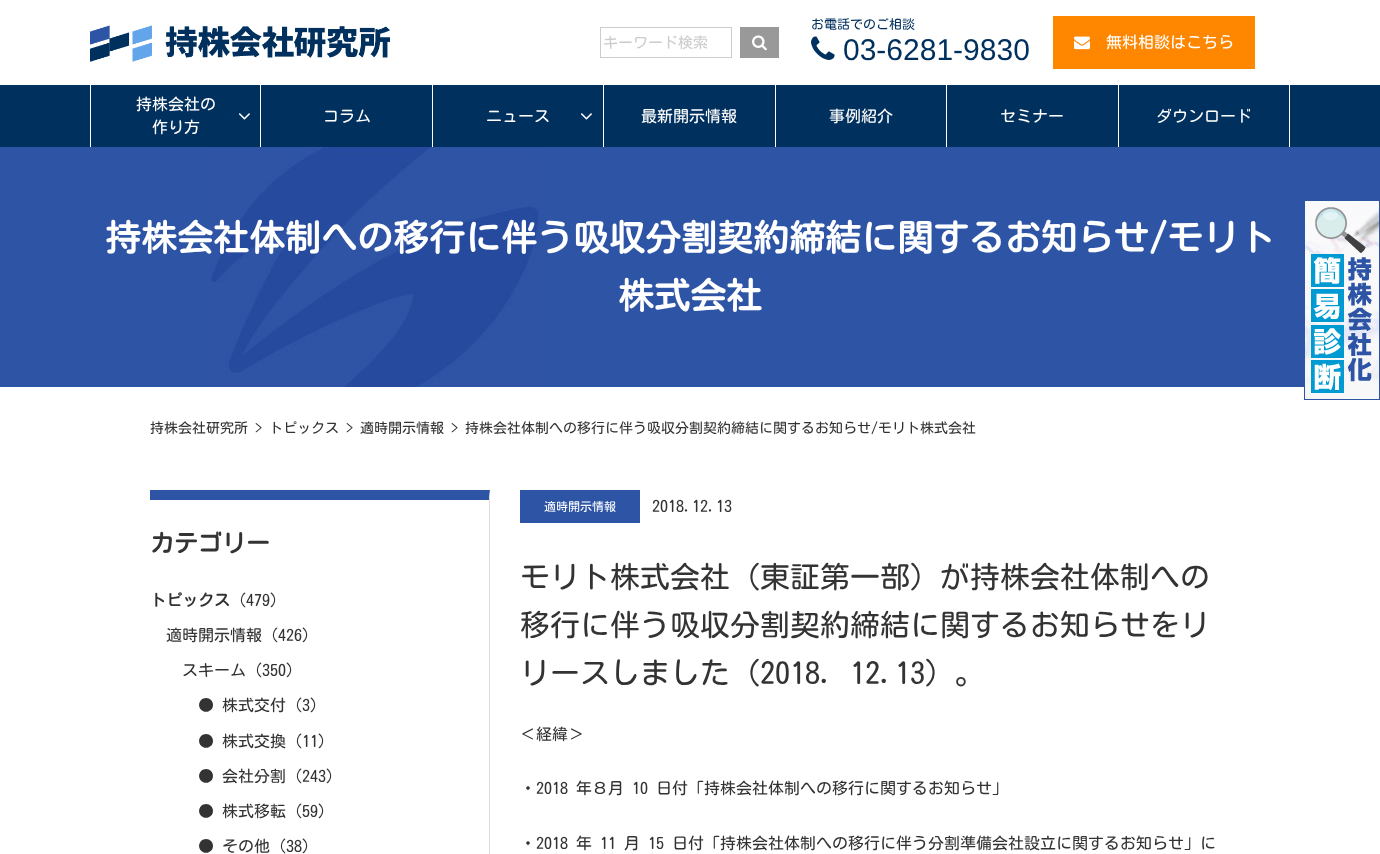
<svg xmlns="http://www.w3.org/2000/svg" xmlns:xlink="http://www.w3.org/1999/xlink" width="1380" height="854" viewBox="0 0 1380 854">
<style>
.cls-1{font:15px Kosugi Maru;fill:#cccccc}
.cls-2{font:13px Kosugi Maru;fill:#00305d}
.cls-3{font:30px Liberation Sans;fill:#00305d}
.cls-4{font:16px Kosugi Maru;fill:#ffffff}
.cls-5{font:bold 36px Kosugi Maru;fill:#ffffff}
.cls-6{font:14px Kosugi Maru;fill:#333333}
.cls-7{font:bold 24px Kosugi Maru;fill:#333333}
.cls-8{font:bold 16px Kosugi Maru;fill:#333333}
.cls-9{font:16px Kosugi Maru;fill:#333333}
.cls-10{font:12px Kosugi Maru;fill:#ffffff}
.cls-11{font:30px Kosugi Maru;fill:#333333}
</style>
<rect width="100%" height="100%" fill="#ffffff"/>
<image xlink:href="image0.png" x="90" y="25" width="300" height="37"/>
<rect fill="none" stroke="#cccccc" x="600.5" y="27.5" width="131" height="30"/>
<rect fill="#999999" x="740" y="27" width="39" height="31"/>
<image xlink:href="image1.png" x="752" y="35" width="15" height="16"/>
<image xlink:href="image2.png" x="811" y="36" width="24" height="24"/>
<rect fill="#ff8700" x="1053" y="16" width="202" height="53"/>
<image xlink:href="image3.png" x="1074" y="36" width="16" height="14"/>
<rect fill="#00305d" x="0" y="85" width="1380" height="62"/>
<rect fill="#ffffff" x="260" y="85" width="1" height="62"/>
<rect fill="#ffffff" x="90" y="85" width="1" height="62"/>
<image xlink:href="image4.png" x="238" y="113" width="12" height="7"/>
<rect fill="#ffffff" x="432" y="85" width="1" height="62"/>
<rect fill="#ffffff" x="603" y="85" width="1" height="62"/>
<image xlink:href="image4.png" x="580" y="113" width="12" height="7"/>
<rect fill="#ffffff" x="775" y="85" width="1" height="62"/>
<rect fill="#ffffff" x="946" y="85" width="1" height="62"/>
<rect fill="#ffffff" x="1118" y="85" width="1" height="62"/>
<rect fill="#ffffff" x="1289" y="85" width="1" height="62"/>
<rect fill="#2d54a5" x="0" y="147" width="1380" height="240"/>
<image xlink:href="image5.png" x="211" y="147" width="328" height="240"/>
<path fill="#2d54a5" d="M150 490H490L489 500H150Z"/>
<path fill="#dddddd" d="M490 490V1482L489 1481V500Z"/>
<rect fill="#2d54a5" x="520" y="490" width="120" height="33"/>
<image xlink:href="image6.png" x="1304" y="200" width="76" height="200"/>
<text class="cls-1" x="603" y="48">キーワード検索</text>
<text class="cls-2" x="811" y="29">お電話でのご相談</text>
<text class="cls-3" x="843" y="60">03-6281-9830</text>
<text class="cls-4" x="1106" y="48">無料相談はこちら</text>
<text class="cls-4" x="136" y="110">持株会社の</text>
<text class="cls-4" x="152" y="133">作り方</text>
<text class="cls-4" x="323" y="122">コラム</text>
<text class="cls-4" x="486" y="122">ニュース</text>
<text class="cls-4" x="641" y="122">最新開示情報</text>
<text class="cls-4" x="829" y="122">事例紹介</text>
<text class="cls-4" x="1000" y="122">セミナー</text>
<text class="cls-4" x="1156" y="122">ダウンロード</text>
<text class="cls-5" x="105" y="251">持株会社体制への移行に伴う吸収分割契約締結に関するお知らせ/モリト</text>
<text class="cls-5" x="618" y="309">株式会社</text>
<text class="cls-6" x="150" y="433">持株会社研究所 &gt; トピックス &gt; 適時開示情報 &gt; 持株会社体制への移行に伴う吸収分割契約締結に関するお知らせ/モリト株式会社</text>
<text class="cls-7" x="150" y="552">カテゴリー</text>
<text class="cls-8" x="150" y="606">トピックス</text>
<text class="cls-9" x="238" y="606">(479)</text>
<text class="cls-9" x="166" y="641">適時開示情報 (426)</text>
<text class="cls-9" x="182" y="676">スキーム (350)</text>
<text class="cls-9" x="198" y="711">● 株式交付 (3)</text>
<text class="cls-9" x="198" y="747">● 株式交換 (11)</text>
<text class="cls-9" x="198" y="782">● 会社分割 (243)</text>
<text class="cls-9" x="198" y="817">● 株式移転 (59)</text>
<text class="cls-9" x="198" y="852">● その他 (38)</text>
<text class="cls-10" x="544" y="511">適時開示情報</text>
<text class="cls-9" x="652" y="512">2018.12.13</text>
<text class="cls-11"><tspan x="520" y="588">モリト株式会社（東証第一部）が持株会社体制への</tspan><tspan x="520" y="636">移行に伴う吸収分割契約締結に関するお知らせをリ</tspan><tspan x="520" y="684">リースしました（2018．12.13）。</tspan></text>
<text class="cls-9" x="520" y="740">＜経緯＞</text>
<text class="cls-9" x="520" y="794">・2018 年８月 10 日付「持株会社体制への移行に関するお知らせ」</text>
<text class="cls-9" x="520" y="849">・2018 年 11 月 15 日付「持株会社体制への移行に伴う分割準備会社設立に関するお知らせ」に</text>
</svg>
